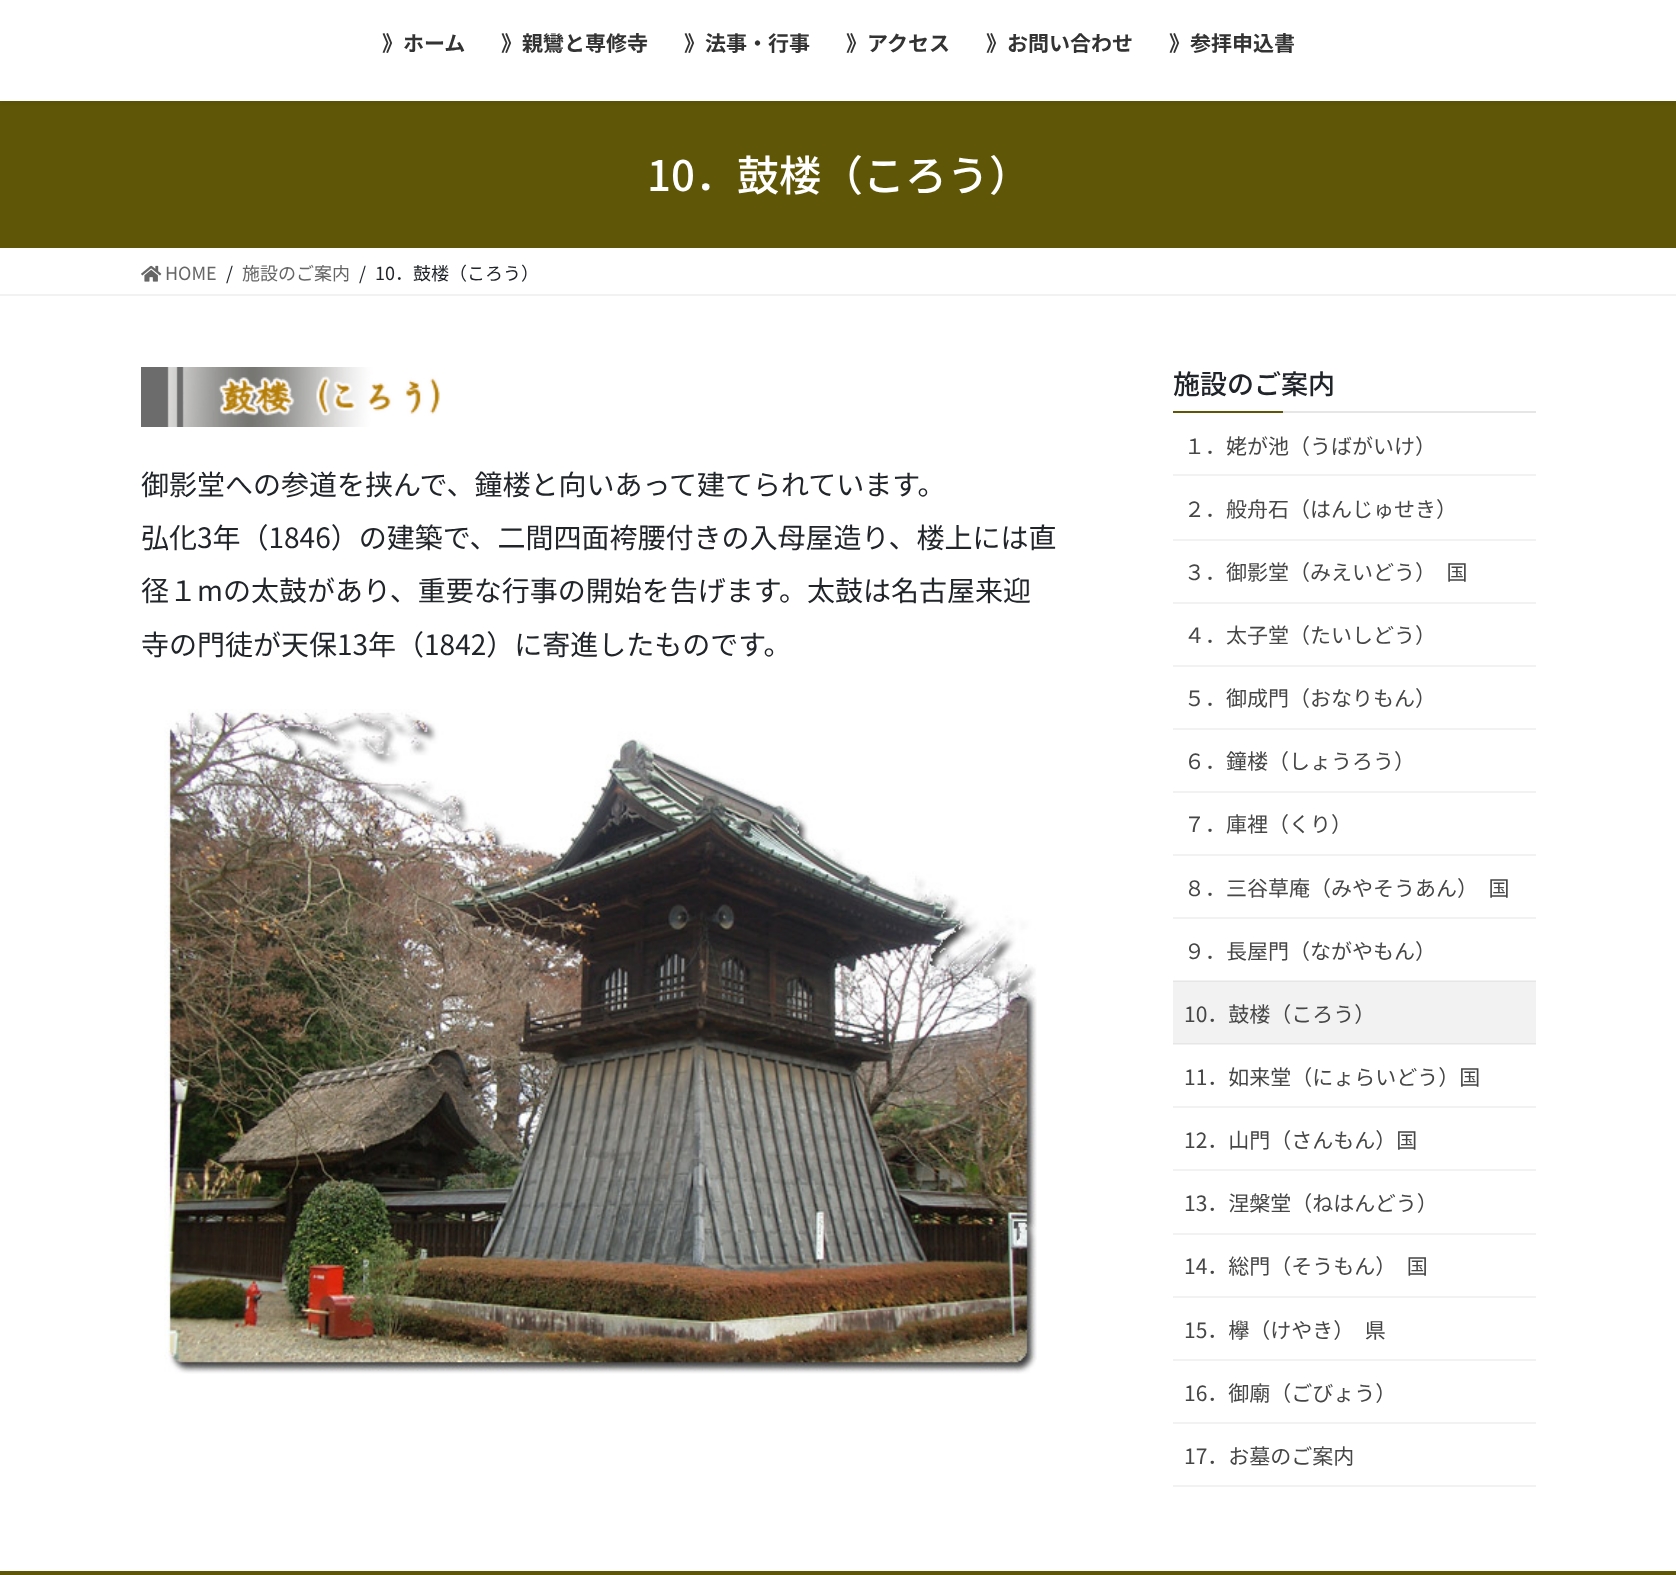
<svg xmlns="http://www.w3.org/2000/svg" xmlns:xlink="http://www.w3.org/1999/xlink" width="1676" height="1575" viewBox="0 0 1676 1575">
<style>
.cls-1{font:bold 21px Noto Sans JP;fill:#333333}
.cls-2{font:500 42px Noto Sans JP;fill:#ffffff}
.cls-3{font:18px Noto Sans JP;fill:#666666}
.cls-4{font:18px Noto Sans JP;fill:#212529}
.cls-5{font:28px Noto Sans JP;fill:#212529}
.cls-6{font:500 27px Noto Sans JP;fill:#212529}
.cls-7{font:21px Noto Sans JP;fill:#464646}
</style>
<rect width="100%" height="100%" fill="#ffffff"/>
<rect fill="#f2f2f2" x="1173" y="1044" width="363" height="1"/>
<rect fill="#f2f2f2" x="1173" y="982" width="363" height="61"/>
<rect fill="#e6e6e6" x="1173" y="1043" width="363" height="1"/>
<rect fill="#605607" x="0" y="101" width="1676" height="147"/>
<rect fill="#000000" fill-opacity="0.1" filter="blur(2px)" x="0" y="-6" width="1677" height="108"/>
<rect fill="#ffffff" x="0" y="0" width="1676" height="101"/>
<rect fill="#f2f2f2" x="0" y="294" width="1676" height="2"/>
<image xlink:href="image0.png" x="141" y="265" width="21" height="17"/>
<image xlink:href="image1.png" x="141" y="367" width="299" height="60"/>
<image xlink:href="image2.png" x="164" y="709" width="873" height="665"/>
<rect fill="#e6e6e6" x="1283" y="411" width="253" height="2"/>
<rect fill="#605607" x="1173" y="411" width="110" height="2"/>
<rect fill="#f2f2f2" x="1173" y="474" width="363" height="2"/>
<rect fill="#f2f2f2" x="1173" y="539" width="363" height="2"/>
<rect fill="#f2f2f2" x="1173" y="602" width="363" height="2"/>
<rect fill="#f2f2f2" x="1173" y="665" width="363" height="2"/>
<rect fill="#f2f2f2" x="1173" y="728" width="363" height="2"/>
<rect fill="#f2f2f2" x="1173" y="791" width="363" height="2"/>
<rect fill="#f2f2f2" x="1173" y="854" width="363" height="2"/>
<rect fill="#f2f2f2" x="1173" y="917" width="363" height="2"/>
<rect fill="#f2f2f2" x="1173" y="980" width="363" height="1"/>
<rect fill="#e6e6e6" x="1173" y="981" width="363" height="1"/>
<rect fill="#f2f2f2" x="1173" y="1106" width="363" height="2"/>
<rect fill="#f2f2f2" x="1173" y="1169" width="363" height="2"/>
<rect fill="#f2f2f2" x="1173" y="1233" width="363" height="2"/>
<rect fill="#f2f2f2" x="1173" y="1296" width="363" height="2"/>
<rect fill="#f2f2f2" x="1173" y="1359" width="363" height="2"/>
<rect fill="#f2f2f2" x="1173" y="1422" width="363" height="2"/>
<rect fill="#f2f2f2" x="1173" y="1485" width="363" height="2"/>
<rect fill="#605607" x="0" y="1571" width="1676" height="4"/>
<text class="cls-1" x="382" y="51">》ホーム</text>
<text class="cls-1" x="501" y="51">》親鸞と専修寺</text>
<text class="cls-1" x="684" y="51">》法事・行事</text>
<text class="cls-1" x="846" y="51">》アクセス</text>
<text class="cls-1" x="986" y="51">》お問い合わせ</text>
<text class="cls-1" x="1169" y="51">》参拝申込書</text>
<text class="cls-2" x="647" y="191">10．鼓楼（ころう）</text>
<text class="cls-3" x="165" y="280">HOME</text>
<text class="cls-4" x="226" y="280">/</text>
<text class="cls-3" x="242" y="280">施設のご案内</text>
<text class="cls-4" x="359" y="280">/</text>
<text class="cls-4" x="375" y="280">10．鼓楼（ころう）</text>
<text class="cls-5"><tspan x="141" y="495">御影堂への参道を挟んで、鐘楼と向いあって建てられています。</tspan><tspan x="141" y="548">弘化3年（1846）の建築で、二間四面袴腰付きの入母屋造り、楼上には直</tspan><tspan x="141" y="601">径１mの太鼓があり、重要な行事の開始を告げます。太鼓は名古屋来迎</tspan><tspan x="141" y="655">寺の門徒が天保13年（1842）に寄進したものです。</tspan></text>
<text class="cls-6" x="1173" y="394">施設のご案内</text>
<text class="cls-7" x="1184" y="454">１．姥が池（うばがいけ）</text>
<text class="cls-7" x="1184" y="517">２．般舟石（はんじゅせき）</text>
<text class="cls-7" x="1184" y="580">３．御影堂（みえいどう）　国</text>
<text class="cls-7" x="1184" y="643">４．太子堂（たいしどう）</text>
<text class="cls-7" x="1184" y="706">５．御成門（おなりもん）</text>
<text class="cls-7" x="1184" y="769">６．鐘楼（しょうろう）</text>
<text class="cls-7" x="1184" y="832">７．庫裡（くり）</text>
<text class="cls-7" x="1184" y="896">８．三谷草庵（みやそうあん）　国</text>
<text class="cls-7" x="1184" y="959">９．長屋門（ながやもん）</text>
<text class="cls-7" x="1184" y="1022">10．鼓楼（ころう）</text>
<text class="cls-7" x="1184" y="1085">11．如来堂（にょらいどう）国</text>
<text class="cls-7" x="1184" y="1148">12．山門（さんもん）国</text>
<text class="cls-7" x="1184" y="1211">13．涅槃堂（ねはんどう）</text>
<text class="cls-7" x="1184" y="1274">14．総門（そうもん）　国</text>
<text class="cls-7" x="1184" y="1338">15．欅（けやき）　県</text>
<text class="cls-7" x="1184" y="1401">16．御廟（ごびょう）</text>
<text class="cls-7" x="1184" y="1464">17．お墓のご案内</text>
</svg>
